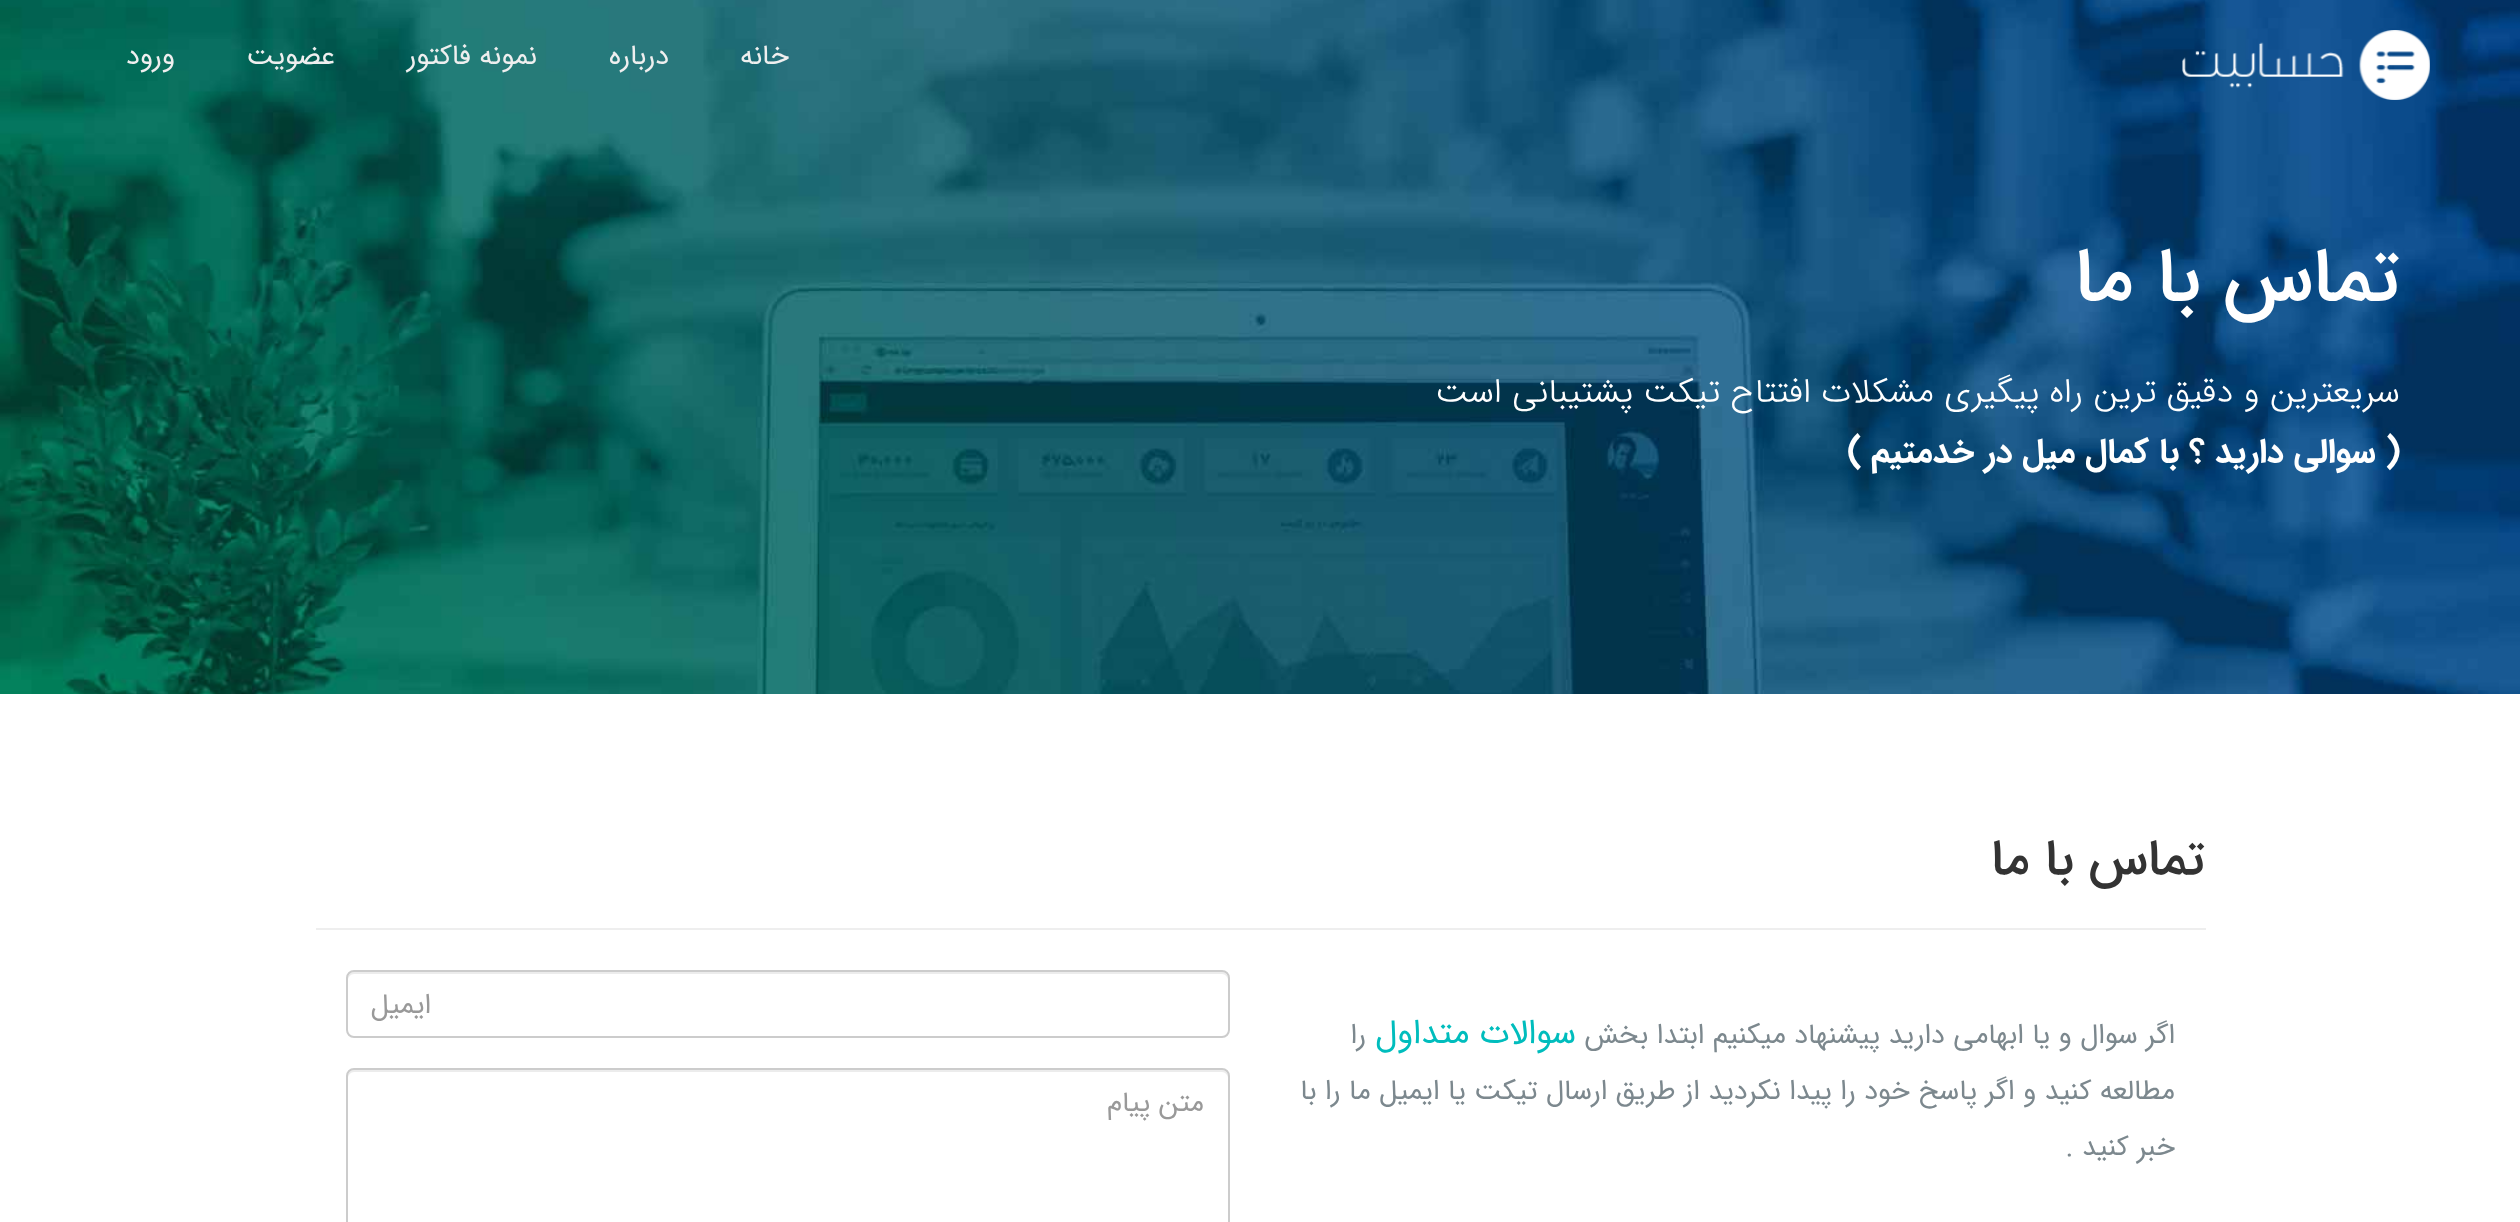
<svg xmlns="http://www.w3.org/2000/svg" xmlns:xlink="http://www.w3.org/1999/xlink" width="2520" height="1222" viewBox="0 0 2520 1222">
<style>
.cls-1{font:28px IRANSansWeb;direction:rtl;fill:#efefef}
.cls-2{font:500 76px IRANSansWeb;direction:rtl;fill:#ffffff}
.cls-3{font:300 34px IRANSansWeb;direction:rtl;fill:#ffffff}
.cls-4{font:bold 34px IRANSansWeb;direction:rtl;fill:#ffffff}
.cls-5{font:500 50px IRANSansWeb;direction:rtl;fill:#333333}
.cls-6{font:28px IRANSansWeb;direction:rtl;fill:#7c888e}
.cls-7{font:34px IRANSansWeb;direction:rtl;fill:#00bdbd}
.cls-8{font:28px IRANSansWeb;direction:rtl;fill:#999999}
</style>
<rect width="100%" height="100%" fill="#ffffff"/>
<image xlink:href="image1.png" x="0" y="0" width="2520" height="694"/>
<image xlink:href="image0.png" x="2182" y="30" width="248" height="70"/>
<rect fill="#eeeeee" x="316" y="928" width="1890" height="2"/>
<path fill="#ececec" d="M354 974H1222C1225 974 1228 977 1228 980V978C1228 975 1225 972 1222 972H354C351 972 348 975 348 978V980C348 977 351 974 354 974Z"/>
<rect fill="none" stroke="#cccccc" stroke-width="2" x="347" y="971" width="882" height="66" rx="7"/>
<path fill="#ececec" d="M354 1072H1222C1225 1072 1228 1075 1228 1078V1076C1228 1073 1225 1070 1222 1070H354C351 1070 348 1073 348 1076V1078C348 1075 351 1072 354 1072Z"/>
<rect fill="none" stroke="#cccccc" stroke-width="2" x="347" y="1069" width="882" height="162" rx="7"/>
<text class="cls-1" x="789" y="64">خانه</text>
<text class="cls-1" x="669" y="64">درباره</text>
<text class="cls-1" x="537" y="64">نمونه فاکتور</text>
<text class="cls-1" x="335" y="64">عضویت</text>
<text class="cls-1" x="175" y="64">ورود</text>
<text class="cls-2" x="2400" y="300">تماس با ما</text>
<text class="cls-3" x="2400" y="402">سریعترین و دقیق ترین راه پیگیری مشکلات افتتاح تیکت پشتیبانی است</text>
<text class="cls-4" x="2400" y="462">( سوالی دارید ؟ با کمال میل در خدمتیم )</text>
<text class="cls-5" x="2205" y="874">تماس با ما</text>
<text class="cls-6" x="2175" y="1043">اگر سوال و یا ابهامی دارید پیشنهاد میکنیم ابتدا بخش</text>
<text class="cls-7" x="1576" y="1043">سوالات متداول</text>
<text class="cls-6" x="1366" y="1043">را</text>
<text class="cls-6" x="2175" y="1099">مطالعه کنید و اگر پاسخ خود را پیدا نکردید از طریق ارسال تیکت یا ایمیل ما را با</text>
<text class="cls-6" x="2175" y="1155">خبر کنید .</text>
<text class="cls-8" x="431" y="1013">ایمیل</text>
<text class="cls-8" x="1204" y="1111">متن پیام</text>
</svg>
